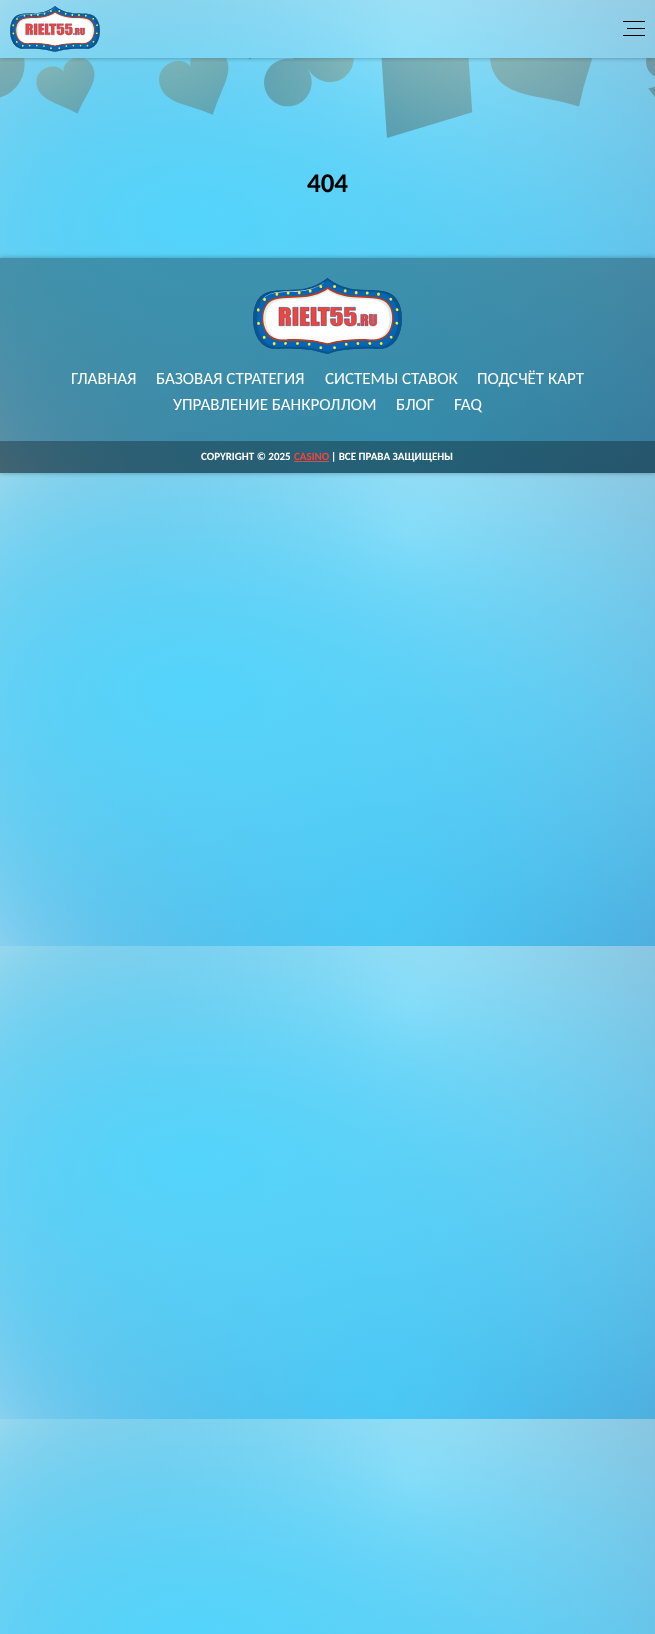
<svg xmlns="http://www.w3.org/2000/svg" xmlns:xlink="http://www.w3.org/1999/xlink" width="655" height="1634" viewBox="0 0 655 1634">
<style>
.cls-1{font:bold 27px Carlito;fill:#000000}
.cls-2{font:17px Carlito;fill:#ffffff}
.cls-3{font:bold 11px Carlito;fill:#ffffff}
.cls-4{font:bold 11px Carlito;fill:#f0453d}
</style>
<defs>
<radialGradient id="g1" gradientUnits="userSpaceOnUse" cx="0" cy="0" r="1" gradientTransform="matrix(619 0 0 493 438 124)"><stop offset="0" stop-color="#54d4fb"/><stop offset="1" stop-color="#ffffff"/></radialGradient>
<radialGradient id="g2" gradientUnits="userSpaceOnUse" cx="0" cy="0" r="1" gradientTransform="matrix(619 0 0 493 438 597)"><stop offset="0" stop-color="#54d4fb"/><stop offset="1" stop-color="#ffffff"/></radialGradient>
<radialGradient id="g3" gradientUnits="userSpaceOnUse" cx="0" cy="0" r="1" gradientTransform="matrix(619 0 0 493 438 1070)"><stop offset="0" stop-color="#54d4fb"/><stop offset="1" stop-color="#ffffff"/></radialGradient>
<radialGradient id="g4" gradientUnits="userSpaceOnUse" cx="0" cy="0" r="1" gradientTransform="matrix(619 0 0 493 438 1543)"><stop offset="0" stop-color="#54d4fb"/><stop offset="1" stop-color="#ffffff"/></radialGradient>
<radialGradient id="g5" gradientUnits="userSpaceOnUse" cx="0" cy="0" r="1" gradientTransform="matrix(670 0 0 577 474 65)"><stop offset="0" stop-color="#1e6996"/><stop offset="1" stop-color="#1e6996" stop-opacity="0"/></radialGradient>
<radialGradient id="g6" gradientUnits="userSpaceOnUse" cx="0" cy="0" r="1" gradientTransform="matrix(670 0 0 577 474 538)"><stop offset="0" stop-color="#1e6996"/><stop offset="1" stop-color="#1e6996" stop-opacity="0"/></radialGradient>
<radialGradient id="g7" gradientUnits="userSpaceOnUse" cx="0" cy="0" r="1" gradientTransform="matrix(670 0 0 577 474 1011)"><stop offset="0" stop-color="#1e6996"/><stop offset="1" stop-color="#1e6996" stop-opacity="0"/></radialGradient>
<radialGradient id="g8" gradientUnits="userSpaceOnUse" cx="0" cy="0" r="1" gradientTransform="matrix(670 0 0 577 474 1484)"><stop offset="0" stop-color="#1e6996"/><stop offset="1" stop-color="#1e6996" stop-opacity="0"/></radialGradient>
<radialGradient id="g9" gradientUnits="userSpaceOnUse" cx="0" cy="0" r="1" gradientTransform="matrix(672 0 0 588 475 416)"><stop offset="0" stop-color="#0968b3"/><stop offset="1" stop-color="#0968b3" stop-opacity="0"/></radialGradient>
<radialGradient id="g10" gradientUnits="userSpaceOnUse" cx="0" cy="0" r="1" gradientTransform="matrix(672 0 0 588 475 889)"><stop offset="0" stop-color="#0968b3"/><stop offset="1" stop-color="#0968b3" stop-opacity="0"/></radialGradient>
<radialGradient id="g11" gradientUnits="userSpaceOnUse" cx="0" cy="0" r="1" gradientTransform="matrix(672 0 0 588 475 1362)"><stop offset="0" stop-color="#0968b3"/><stop offset="1" stop-color="#0968b3" stop-opacity="0"/></radialGradient>
<radialGradient id="g12" gradientUnits="userSpaceOnUse" cx="0" cy="0" r="1" gradientTransform="matrix(672 0 0 588 475 1835)"><stop offset="0" stop-color="#0968b3"/><stop offset="1" stop-color="#0968b3" stop-opacity="0"/></radialGradient>
<radialGradient id="g13" gradientUnits="userSpaceOnUse" cx="0" cy="0" r="1" gradientTransform="matrix(575 0 0 584 407 60)"><stop offset="0" stop-color="#e9f8fa"/><stop offset="1" stop-color="#e9f8fa" stop-opacity="0"/></radialGradient>
<radialGradient id="g14" gradientUnits="userSpaceOnUse" cx="0" cy="0" r="1" gradientTransform="matrix(575 0 0 584 407 533)"><stop offset="0" stop-color="#e9f8fa"/><stop offset="1" stop-color="#e9f8fa" stop-opacity="0"/></radialGradient>
<radialGradient id="g15" gradientUnits="userSpaceOnUse" cx="0" cy="0" r="1" gradientTransform="matrix(575 0 0 584 407 1006)"><stop offset="0" stop-color="#e9f8fa"/><stop offset="1" stop-color="#e9f8fa" stop-opacity="0"/></radialGradient>
<radialGradient id="g16" gradientUnits="userSpaceOnUse" cx="0" cy="0" r="1" gradientTransform="matrix(575 0 0 584 407 1479)"><stop offset="0" stop-color="#e9f8fa"/><stop offset="1" stop-color="#e9f8fa" stop-opacity="0"/></radialGradient>
<radialGradient id="g17" gradientUnits="userSpaceOnUse" cx="0" cy="0" r="1" gradientTransform="matrix(543 0 0 634 384 448)"><stop offset="0" stop-color="#48c4f3"/><stop offset="1" stop-color="#48c4f3" stop-opacity="0"/></radialGradient>
<radialGradient id="g18" gradientUnits="userSpaceOnUse" cx="0" cy="0" r="1" gradientTransform="matrix(543 0 0 634 384 921)"><stop offset="0" stop-color="#48c4f3"/><stop offset="1" stop-color="#48c4f3" stop-opacity="0"/></radialGradient>
<radialGradient id="g19" gradientUnits="userSpaceOnUse" cx="0" cy="0" r="1" gradientTransform="matrix(543 0 0 634 384 1394)"><stop offset="0" stop-color="#48c4f3"/><stop offset="1" stop-color="#48c4f3" stop-opacity="0"/></radialGradient>
<radialGradient id="g20" gradientUnits="userSpaceOnUse" cx="0" cy="0" r="1" gradientTransform="matrix(543 0 0 634 384 1867)"><stop offset="0" stop-color="#48c4f3"/><stop offset="1" stop-color="#48c4f3" stop-opacity="0"/></radialGradient>
<radialGradient id="g21" gradientUnits="userSpaceOnUse" cx="0" cy="0" r="1" gradientTransform="matrix(654 0 0 359 192 219)"><stop offset="0" stop-color="#54d4fb"/><stop offset="1" stop-color="#54d4fb" stop-opacity="0"/></radialGradient>
<radialGradient id="g22" gradientUnits="userSpaceOnUse" cx="0" cy="0" r="1" gradientTransform="matrix(654 0 0 359 192 692)"><stop offset="0" stop-color="#54d4fb"/><stop offset="1" stop-color="#54d4fb" stop-opacity="0"/></radialGradient>
<radialGradient id="g23" gradientUnits="userSpaceOnUse" cx="0" cy="0" r="1" gradientTransform="matrix(654 0 0 359 192 1165)"><stop offset="0" stop-color="#54d4fb"/><stop offset="1" stop-color="#54d4fb" stop-opacity="0"/></radialGradient>
<radialGradient id="g24" gradientUnits="userSpaceOnUse" cx="0" cy="0" r="1" gradientTransform="matrix(654 0 0 359 192 1638)"><stop offset="0" stop-color="#54d4fb"/><stop offset="1" stop-color="#54d4fb" stop-opacity="0"/></radialGradient>
<clipPath id="clip1"><rect x="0" y="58" width="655" height="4"/></clipPath>
<clipPath id="clip2"><path d="M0 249H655V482H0ZM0 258H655V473H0Z" clip-rule="evenodd"/></clipPath>
</defs>
<rect width="100%" height="100%" fill="#ffffff"/>
<rect fill="url(#g1)" x="0" y="0" width="655" height="473"/>
<rect fill="url(#g2)" x="0" y="473" width="655" height="473"/>
<rect fill="url(#g3)" x="0" y="946" width="655" height="473"/>
<rect fill="url(#g4)" x="0" y="1419" width="655" height="215"/>
<rect fill="url(#g5)" x="0" y="0" width="655" height="473"/>
<rect fill="url(#g6)" x="0" y="473" width="655" height="473"/>
<rect fill="url(#g7)" x="0" y="946" width="655" height="473"/>
<rect fill="url(#g8)" x="0" y="1419" width="655" height="215"/>
<rect fill="url(#g9)" x="0" y="0" width="655" height="473"/>
<rect fill="url(#g10)" x="0" y="473" width="655" height="473"/>
<rect fill="url(#g11)" x="0" y="946" width="655" height="473"/>
<rect fill="url(#g12)" x="0" y="1419" width="655" height="215"/>
<rect fill="url(#g13)" x="0" y="0" width="655" height="473"/>
<rect fill="url(#g14)" x="0" y="473" width="655" height="473"/>
<rect fill="url(#g15)" x="0" y="946" width="655" height="473"/>
<rect fill="url(#g16)" x="0" y="1419" width="655" height="215"/>
<rect fill="url(#g17)" x="0" y="0" width="655" height="473"/>
<rect fill="url(#g18)" x="0" y="473" width="655" height="473"/>
<rect fill="url(#g19)" x="0" y="946" width="655" height="473"/>
<rect fill="url(#g20)" x="0" y="1419" width="655" height="215"/>
<rect fill="url(#g21)" x="0" y="0" width="655" height="473"/>
<rect fill="url(#g22)" x="0" y="473" width="655" height="473"/>
<rect fill="url(#g23)" x="0" y="946" width="655" height="473"/>
<rect fill="url(#g24)" x="0" y="1419" width="655" height="215"/>
<g clip-path="url(#clip1)">
<rect fill="#000000" fill-opacity="0.3" filter="blur(2.5px)" x="0" y="0" width="655" height="58"/>
</g>
<rect fill="#ffffff" fill-opacity="0.09" x="0" y="0" width="655" height="58"/>
<image xlink:href="image0.png" x="10" y="6" width="90" height="46"/>
<rect fill="#000000" x="623" y="21" width="22" height="1"/>
<rect fill="#000000" x="627" y="28" width="18" height="1"/>
<rect fill="#000000" x="623" y="35" width="22" height="1"/>
<image xlink:href="image1.png" x="0" y="58" width="655" height="80"/>
<g clip-path="url(#clip2)">
<rect fill="#000000" fill-opacity="0.3" filter="blur(2.5px)" x="0" y="258" width="655" height="215"/>
</g>
<rect fill="#000000" fill-opacity="0.3" x="0" y="258" width="655" height="215"/>
<image xlink:href="image2.png" x="253" y="278" width="149" height="76"/>
<rect fill="#000000" fill-opacity="0.3" x="0" y="441" width="655" height="32"/>
<rect fill="#f0453d" x="294" y="461" width="35" height="1"/>
<text class="cls-1" x="307" y="192">404</text>
<text class="cls-2" x="71" y="384">ГЛАВНАЯ</text>
<text class="cls-2" x="156" y="384">БАЗОВАЯ СТРАТЕГИЯ</text>
<text class="cls-2" x="325" y="384">СИСТЕМЫ СТАВОК</text>
<text class="cls-2" x="477" y="384">ПОДСЧЁТ КАРТ</text>
<text class="cls-2" x="173" y="410">УПРАВЛЕНИЕ БАНКРОЛЛОМ</text>
<text class="cls-2" x="396" y="410">БЛОГ</text>
<text class="cls-2" x="454" y="410">FAQ</text>
<text class="cls-3" x="201" y="460">COPYRIGHT © 2025</text>
<text class="cls-4" x="294" y="460">CASINO</text>
<text class="cls-3" x="331" y="460">| ВСЕ ПРАВА ЗАЩИЩЕНЫ</text>
</svg>
